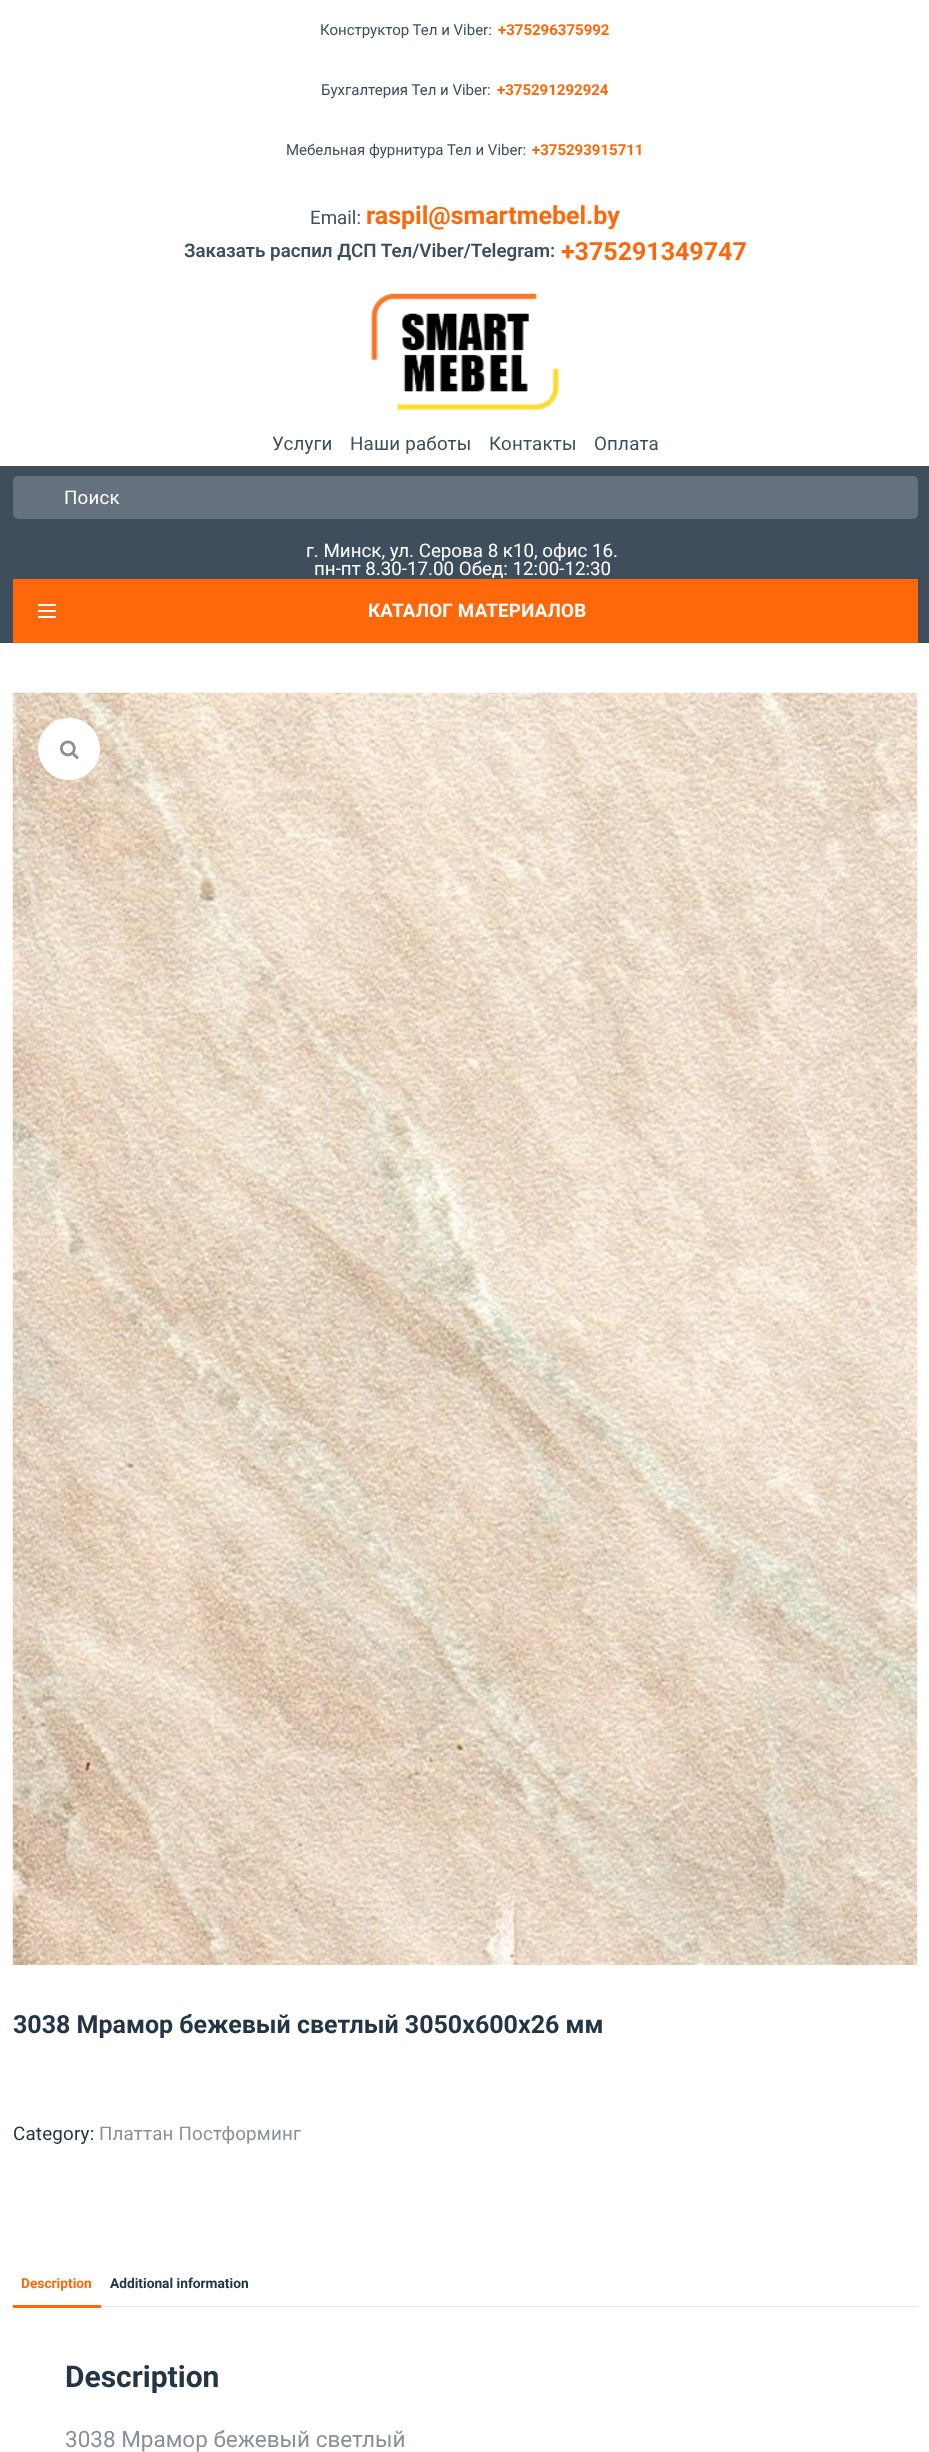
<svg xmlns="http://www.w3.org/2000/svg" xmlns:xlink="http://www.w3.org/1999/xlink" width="929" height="2452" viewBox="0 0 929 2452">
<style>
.cls-1{font:15px Roboto;fill:#3f4e5d}
.cls-2{font:bold 15px Roboto;fill:#ff680a}
.cls-3{font:18.75px Roboto;fill:#3f4e5d}
.cls-4{font:bold 25px Roboto;fill:#ff680a}
.cls-5{font:600 18.75px Roboto;fill:#3f4e5d}
.cls-6{font:18.75px Roboto;letter-spacing:0.2px;fill:#3f4e5d}
.cls-7{font:18.75px Roboto;letter-spacing:0.2px;fill:#ffffff}
.cls-8{font:18.75px Roboto;fill:#ffffff}
.cls-9{font:bold 18.75px Roboto;letter-spacing:0.2px;fill:#ffffff}
.cls-10{font:bold 25px Roboto;fill:#243546}
.cls-11{font:18.75px Roboto;letter-spacing:0.2px;fill:#243546}
.cls-12{font:18.75px Roboto;letter-spacing:0.2px;fill:#8a9099}
.cls-13{font:bold 13.75px Roboto;fill:#ff680a}
.cls-14{font:bold 13.75px Roboto;fill:#243546}
.cls-15{font:bold 30px Roboto;fill:#243546}
.cls-16{font:22.5px Roboto;fill:#8a9099}
</style>
<rect width="100%" height="100%" fill="#ffffff"/>
<image xlink:href="image0.png" x="371" y="293" width="188" height="117"/>
<rect fill="#3f4e5d" x="0" y="466" width="929" height="177"/>
<rect fill="#65717d" x="13" y="476" width="905" height="43" rx="5"/>
<rect fill="#ff680a" x="13" y="579" width="905" height="64"/>
<rect fill="#ffffff" x="38" y="604" width="18" height="2"/>
<rect fill="#ffffff" x="38" y="610" width="18" height="2"/>
<rect fill="#ffffff" x="38" y="616" width="18" height="2"/>
<image xlink:href="image1.png" x="12" y="692" width="906" height="1273"/>
<circle fill="#ffffff" cx="69" cy="749" r="31"/>
<image xlink:href="image2.png" x="60" y="740" width="19" height="20"/>
<rect fill="#e5e7e8" x="101" y="2306" width="817" height="1"/>
<rect fill="#ff680a" x="13" y="2305" width="88" height="3"/>
<text class="cls-1" x="320" y="35">Конструктор Тел и Viber:</text>
<text class="cls-2" x="498" y="35">+375296375992</text>
<text class="cls-1" x="321" y="95">Бухгалтерия Тел и Viber:</text>
<text class="cls-2" x="497" y="95">+375291292924</text>
<text class="cls-1" x="286" y="155">Мебельная фурнитура Тел и Viber:</text>
<text class="cls-2" x="532" y="155">+375293915711</text>
<text class="cls-3" x="310" y="224">Email:</text>
<text class="cls-4" x="366" y="224">raspil@smartmebel.by</text>
<text class="cls-5" x="184" y="257">Заказать распил ДСП Тел/Viber/Telegram:</text>
<text class="cls-4" x="561" y="260">+375291349747</text>
<text class="cls-6" x="272" y="450">Услуги</text>
<text class="cls-6" x="350" y="450">Наши работы</text>
<text class="cls-6" x="489" y="450">Контакты</text>
<text class="cls-6" x="594" y="450">Оплата</text>
<text class="cls-7" x="64" y="504">Поиск</text>
<text class="cls-8" x="306" y="557">г. Минск, ул. Серова 8 к10, офис 16.</text>
<text class="cls-8" x="314" y="575">пн-пт 8.30-17.00 Обед: 12:00-12:30</text>
<text class="cls-9" x="368" y="617">КАТАЛОГ МАТЕРИАЛОВ</text>
<text class="cls-10" x="13" y="2033">3038 Мрамор бежевый светлый 3050х600х26 мм</text>
<text class="cls-11" x="13" y="2140">Category:</text>
<text class="cls-12" x="99" y="2140">Платтан Постформинг</text>
<text class="cls-13" x="21" y="2288">Description</text>
<text class="cls-14" x="110" y="2288">Additional information</text>
<text class="cls-15" x="65" y="2387">Description</text>
<text class="cls-16" x="65" y="2447">3038 Мрамор бежевый светлый</text>
</svg>
